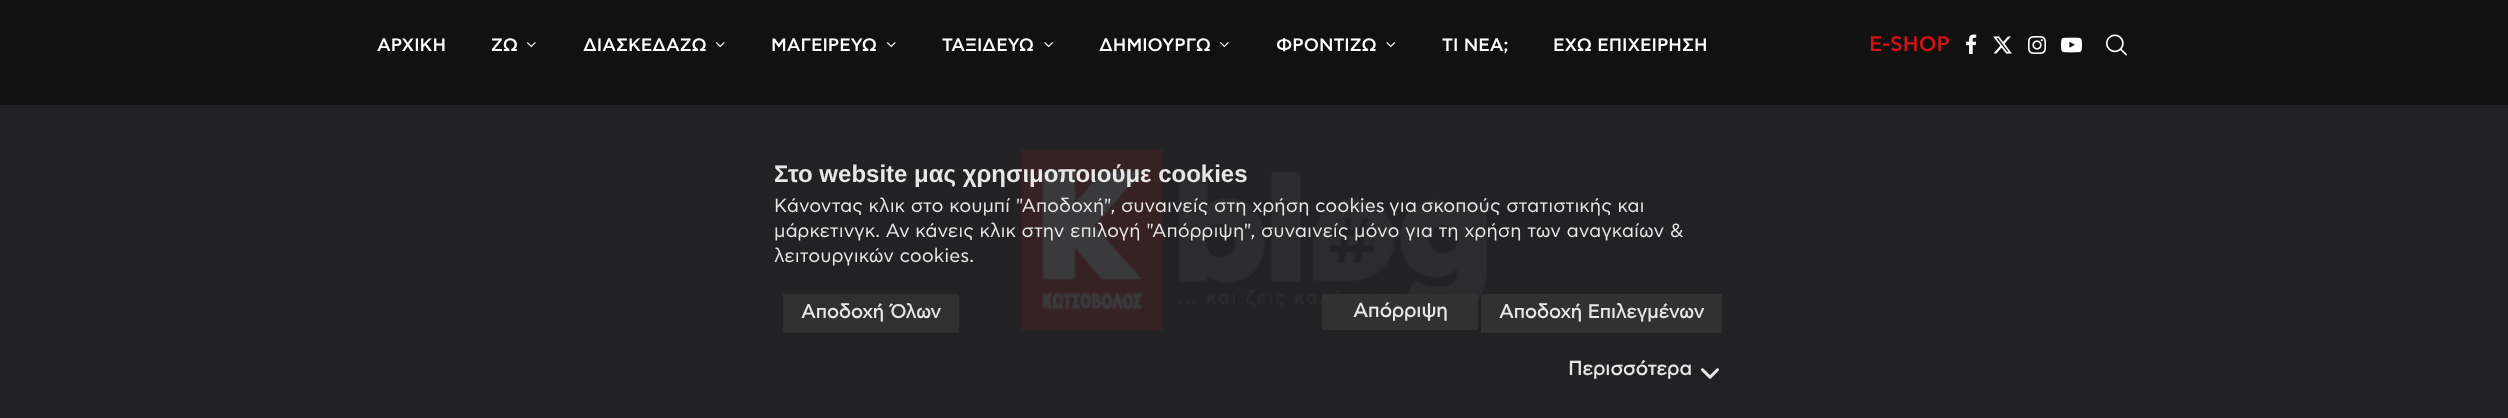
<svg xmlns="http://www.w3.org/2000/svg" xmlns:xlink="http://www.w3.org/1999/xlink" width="2508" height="418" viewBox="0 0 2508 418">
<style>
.cls-1{font:500 18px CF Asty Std;fill:#ffffff}
.cls-2{font:500 21px CF Asty Std;fill:#d51317}
.cls-3{font:bold 24px Liberation Sans;fill:#e7e7e7}
.cls-4{font:19px CF Asty Std;fill:#e7e7e7}
.cls-5{font:bold 19px CF Asty Std;fill:#e7e7e7}
.cls-6{font:bold 19.5px CF Asty Std;fill:#e7e7e7}
</style>
<rect width="100%" height="100%" fill="#111111"/>
<rect fill="#222225" x="0" y="105" width="2508" height="313"/>
<image xlink:href="image0.png" x="527" y="42" width="9" height="6"/>
<image xlink:href="image1.png" x="715" y="42" width="10" height="6"/>
<image xlink:href="image2.png" x="886" y="42" width="10" height="6"/>
<image xlink:href="image3.png" x="1044" y="42" width="9" height="6"/>
<image xlink:href="image4.png" x="1220" y="42" width="9" height="6"/>
<image xlink:href="image5.png" x="1386" y="42" width="9" height="6"/>
<image xlink:href="image6.png" x="1966" y="34" width="11" height="20"/>
<image xlink:href="image7.png" x="1993" y="36" width="19" height="18"/>
<image xlink:href="image8.png" x="2028" y="36" width="18" height="18"/>
<image xlink:href="image9.png" x="2061" y="37" width="21" height="16"/>
<image xlink:href="image10.png" x="2106" y="34" width="21" height="22"/>
<image xlink:href="image11.png" x="1021" y="150" width="466" height="180"/>
<rect fill="#303030" x="783" y="294" width="176" height="39"/>
<rect fill="#333333" fill-opacity="0.9" x="1322" y="294" width="156" height="36"/>
<rect fill="#333333" fill-opacity="0.9" x="1481" y="294" width="241" height="39"/>
<image xlink:href="image12.png" x="1701" y="368" width="18" height="11"/>
<text class="cls-1" x="377" y="51">ΑΡΧΙΚΗ</text>
<text class="cls-1" x="491" y="51">ΖΩ</text>
<text class="cls-1" x="583" y="51">ΔΙΑΣΚΕΔΑΖΩ</text>
<text class="cls-1" x="771" y="51">ΜΑΓΕΙΡΕΥΩ</text>
<text class="cls-1" x="942" y="51">ΤΑΞΙΔΕΥΩ</text>
<text class="cls-1" x="1099" y="51">ΔΗΜΙΟΥΡΓΩ</text>
<text class="cls-1" x="1276" y="51">ΦΡΟΝΤΙΖΩ</text>
<text class="cls-1" x="1442" y="51">ΤΙ ΝΕΑ;</text>
<text class="cls-1" x="1553" y="51">ΕΧΩ ΕΠΙΧΕΙΡΗΣΗ</text>
<text class="cls-2" x="1869" y="51">E-SHOP</text>
<text class="cls-3" x="774" y="182">Στο website μας χρησιμοποιούμε cookies</text>
<text class="cls-4" x="774" y="212">Κάνοντας κλικ στο κουμπί "Αποδοχή", συναινείς στη χρήση cookies</text>
<text class="cls-4" x="1389" y="212">για</text>
<text class="cls-4" x="1421" y="212">σκοπούς στατιστικής και</text>
<text class="cls-4"><tspan x="774" y="237">μάρκετινγκ. Αν κάνεις κλικ στην επιλογή "Απόρριψη", συναινείς μόνο για τη χρήση των αναγκαίων &amp;</tspan><tspan x="774" y="262">λειτουργικών cookies.</tspan></text>
<text class="cls-5" x="801" y="318">Αποδοχή Όλων</text>
<text class="cls-6" x="1353" y="317">Απόρριψη</text>
<text class="cls-5" x="1499" y="318">Αποδοχή Επιλεγμένων</text>
<text class="cls-6" x="1568" y="375">Περισσότερα</text>
</svg>
